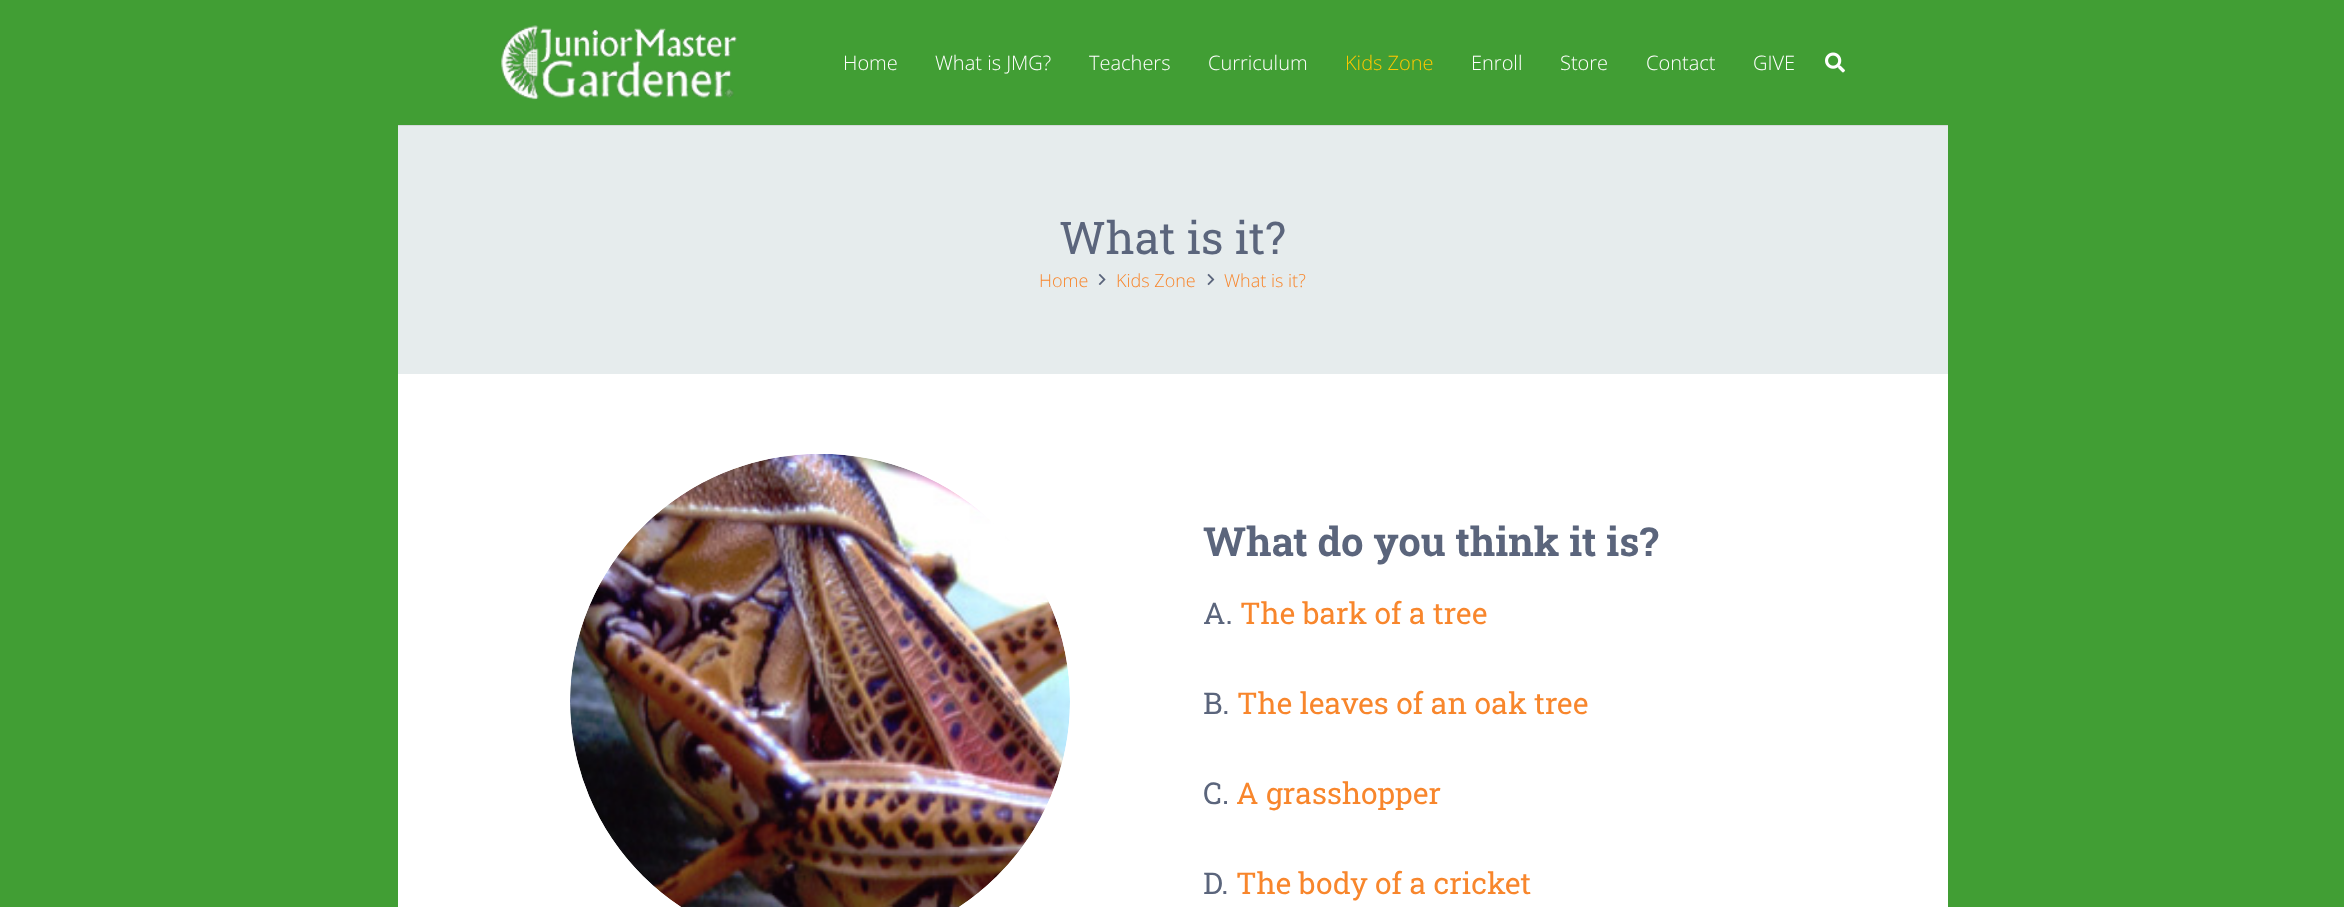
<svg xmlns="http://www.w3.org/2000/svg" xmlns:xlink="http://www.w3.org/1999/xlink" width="2344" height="907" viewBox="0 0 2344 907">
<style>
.cls-1{font:300 20px Open Sans;fill:#ffffff}
.cls-2{font:300 20px Open Sans;fill:#ffc700}
.cls-3{font:45px Roboto Slab;fill:#5b657c}
.cls-4{font:300 18px Open Sans;fill:#f8862c}
.cls-5{font:bold 40px Roboto Slab;fill:#5b657c}
.cls-6{font:30px Roboto Slab;fill:#5b657c}
.cls-7{font:30px Roboto Slab;fill:#f8862c}
</style>
<rect width="100%" height="100%" fill="#419e34"/>
<rect fill="#ffffff" x="398" y="374" width="1550" height="533"/>
<path fill="#d4d9da" d="M398 125V126H1948V1V125Z"/>
<image xlink:href="image0.png" x="501" y="25" width="236" height="75"/>
<image xlink:href="image1.png" x="1825" y="52" width="20" height="21"/>
<rect fill="#e6eced" x="398" y="126" width="1550" height="248"/>
<image xlink:href="image2.png" x="1098" y="273" width="8" height="12"/>
<image xlink:href="image3.png" x="1207" y="273" width="8" height="13"/>
<image xlink:href="image4.png" x="570" y="454" width="500" height="453"/>
<text class="cls-1" x="843" y="70">Home</text>
<text class="cls-1" x="935" y="70">What is JMG?</text>
<text class="cls-1" x="1089" y="70">Teachers</text>
<text class="cls-1" x="1208" y="70">Curriculum</text>
<text class="cls-2" x="1345" y="70">Kids Zone</text>
<text class="cls-1" x="1471" y="70">Enroll</text>
<text class="cls-1" x="1560" y="70">Store</text>
<text class="cls-1" x="1646" y="70">Contact</text>
<text class="cls-1" x="1753" y="70">GIVE</text>
<text class="cls-3" x="1059" y="254">What is it?</text>
<text class="cls-4" x="1039" y="287">Home</text>
<text class="cls-4" x="1116" y="287">Kids Zone</text>
<text class="cls-4" x="1224" y="287">What is it?</text>
<text class="cls-5" x="1203" y="556">What do you think it is?</text>
<text class="cls-6" x="1203" y="624">A.</text>
<text class="cls-7" x="1240" y="624">The bark of a tree</text>
<text class="cls-6" x="1203" y="714">B.</text>
<text class="cls-7" x="1237" y="714">The leaves of an oak tree</text>
<text class="cls-6" x="1203" y="804">C.</text>
<text class="cls-7" x="1236" y="804">A grasshopper</text>
<text class="cls-6" x="1203" y="894">D.</text>
<text class="cls-7" x="1236" y="894">The body of a cricket</text>
</svg>
